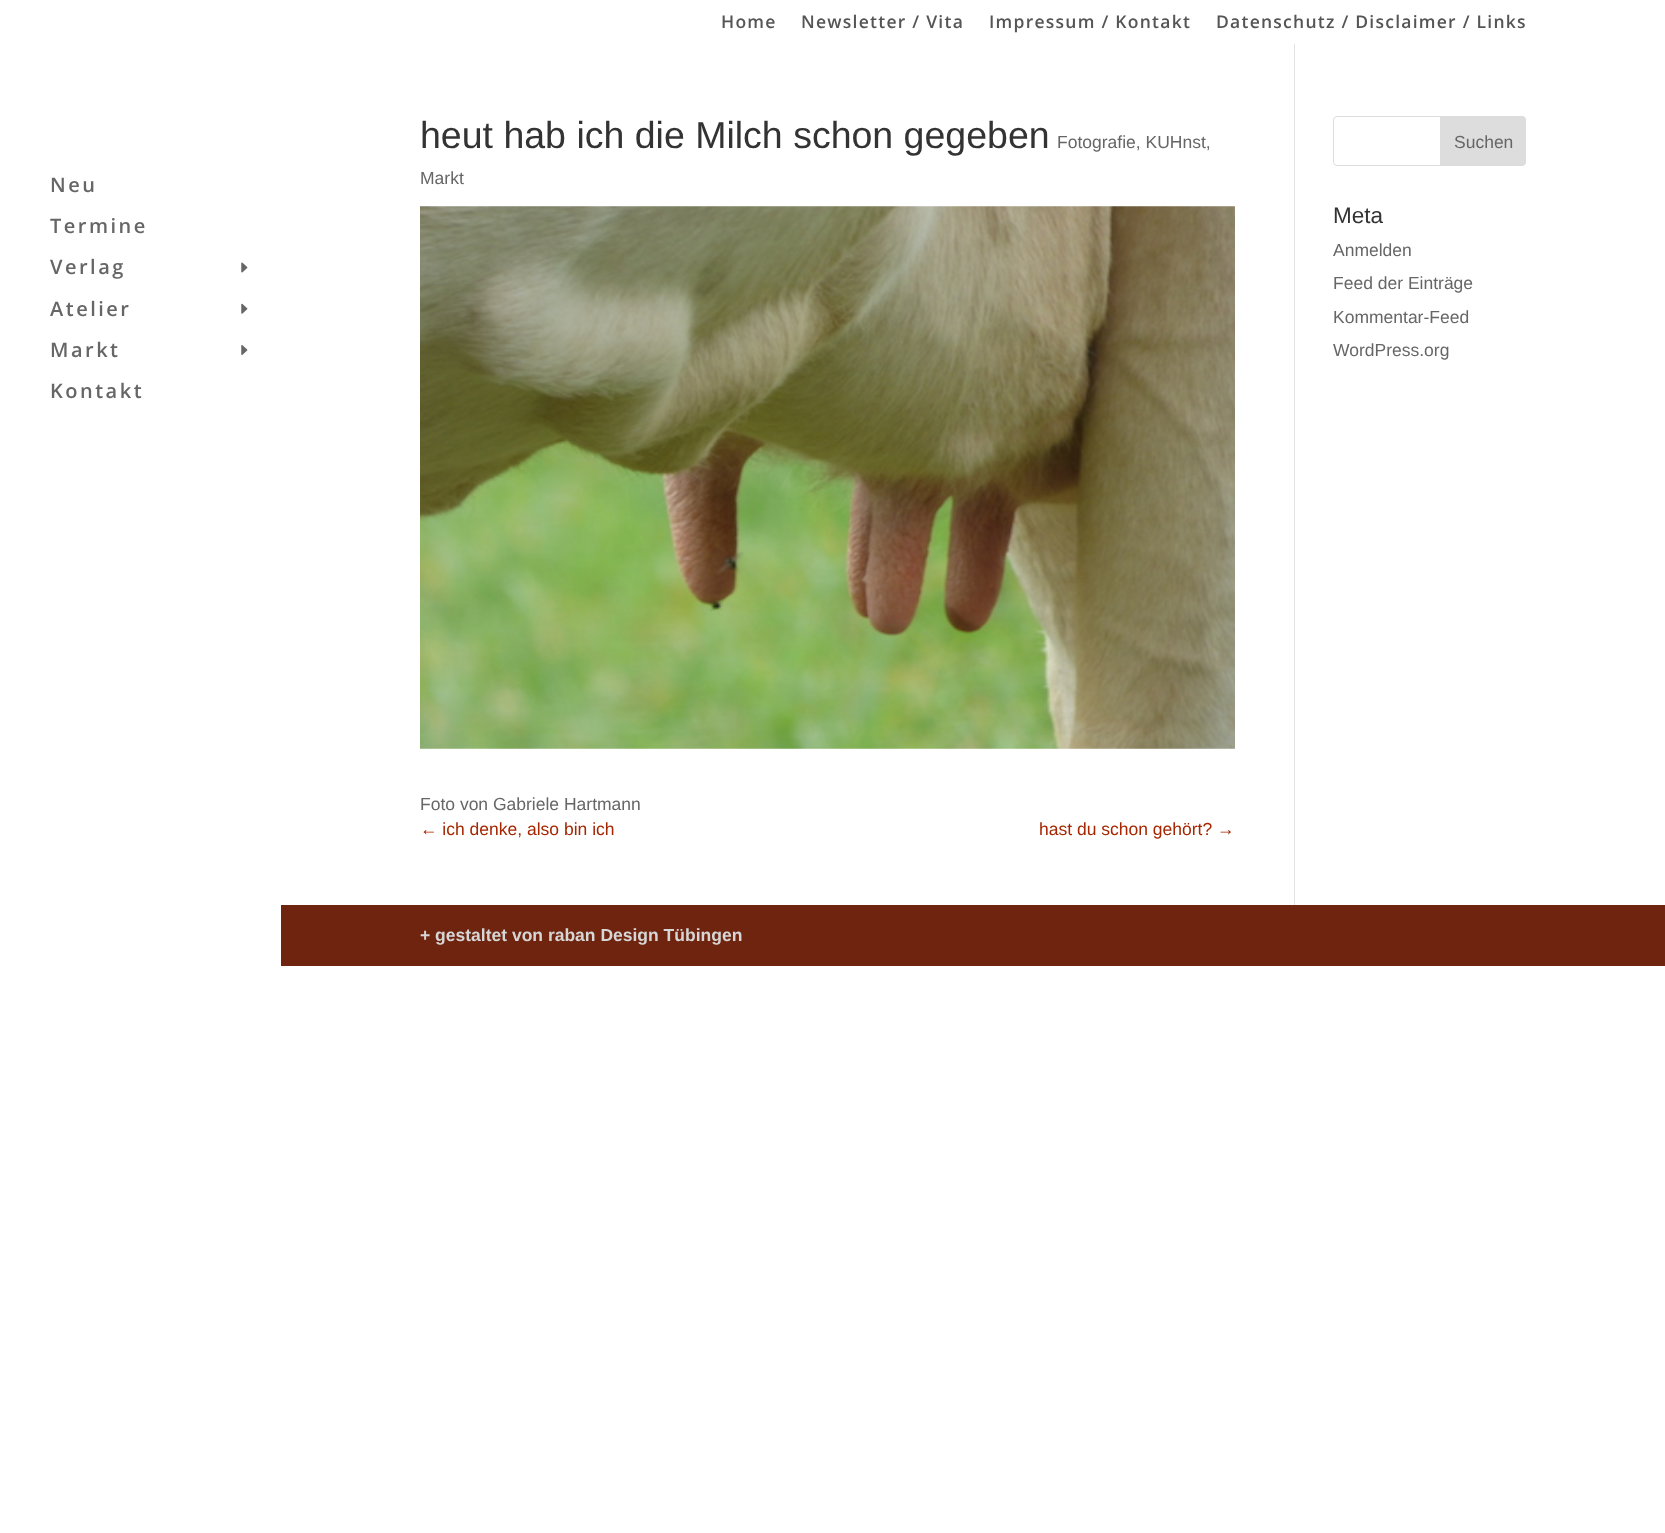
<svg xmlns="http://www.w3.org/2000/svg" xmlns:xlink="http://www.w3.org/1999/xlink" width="1665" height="1533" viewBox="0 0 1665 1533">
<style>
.cls-1{font:600 17.5px Open Sans;letter-spacing:1.25px;fill:#555555}
.cls-2{font:600 20px Open Sans;letter-spacing:2.5px;fill:#666666}
.cls-3{font:37.5px Liberation Sans;fill:#333333}
.cls-4{font:17.5px Liberation Sans;fill:#666666}
.cls-5{font:17.5px Liberation Sans;fill:#a52600}
.cls-6{font:22.5px Liberation Sans;fill:#333333}
.cls-7{font:bold 17.5px Liberation Sans;fill:#d6d6d6}
</style>
<rect width="100%" height="100%" fill="#ffffff"/>
<image xlink:href="image0.png" x="241" y="262" width="7" height="11"/>
<image xlink:href="image1.png" x="241" y="303" width="7" height="11"/>
<image xlink:href="image2.png" x="241" y="345" width="7" height="10"/>
<rect fill="#e2e2e2" x="1294" y="44" width="1" height="861"/>
<image xlink:href="image3.png" x="420" y="206" width="815" height="543"/>
<rect fill="none" stroke="#dddddd" x="1333.5" y="116.5" width="192" height="49" rx="3.5"/>
<path fill="#dddddd" stroke="#dddddd" d="M1440.5 116.5H1522C1524 116.5 1525.5 118 1525.5 120V162C1525.5 164 1524 165.5 1522 165.5H1440.5Z"/>
<rect fill="#6e240e" x="281" y="905" width="1384" height="61"/>
<text class="cls-1" x="721" y="28">Home</text>
<text class="cls-1" x="801" y="28">Newsletter / Vita</text>
<text class="cls-1" x="989" y="28">Impressum / Kontakt</text>
<text class="cls-1" x="1216" y="28">Datenschutz / Disclaimer / Links</text>
<text class="cls-2" x="50" y="192">Neu</text>
<text class="cls-2" x="50" y="233">Termine</text>
<text class="cls-2" x="50" y="274">Verlag</text>
<text class="cls-2" x="50" y="316">Atelier</text>
<text class="cls-2" x="50" y="357">Markt</text>
<text class="cls-2" x="50" y="398">Kontakt</text>
<text class="cls-3" x="420" y="148">heut hab ich die Milch schon gegeben</text>
<text class="cls-4" x="1057" y="148">Fotografie, KUHnst,</text>
<text class="cls-4" x="420" y="184">Markt</text>
<text class="cls-4" x="420" y="810">Foto von Gabriele Hartmann</text>
<text class="cls-5" x="420" y="835">← ich denke, also bin ich</text>
<text class="cls-5" x="1039" y="835">hast du schon gehört? →</text>
<text class="cls-4" x="1454" y="148">Suchen</text>
<text class="cls-6" x="1333" y="223">Meta</text>
<text class="cls-4"><tspan x="1333" y="256">Anmelden</tspan><tspan x="1333" y="289">Feed der Einträge</tspan><tspan x="1333" y="323">Kommentar-Feed</tspan><tspan x="1333" y="356">WordPress.org</tspan></text>
<text class="cls-7" x="420" y="941">+ gestaltet von raban Design Tübingen</text>
</svg>
